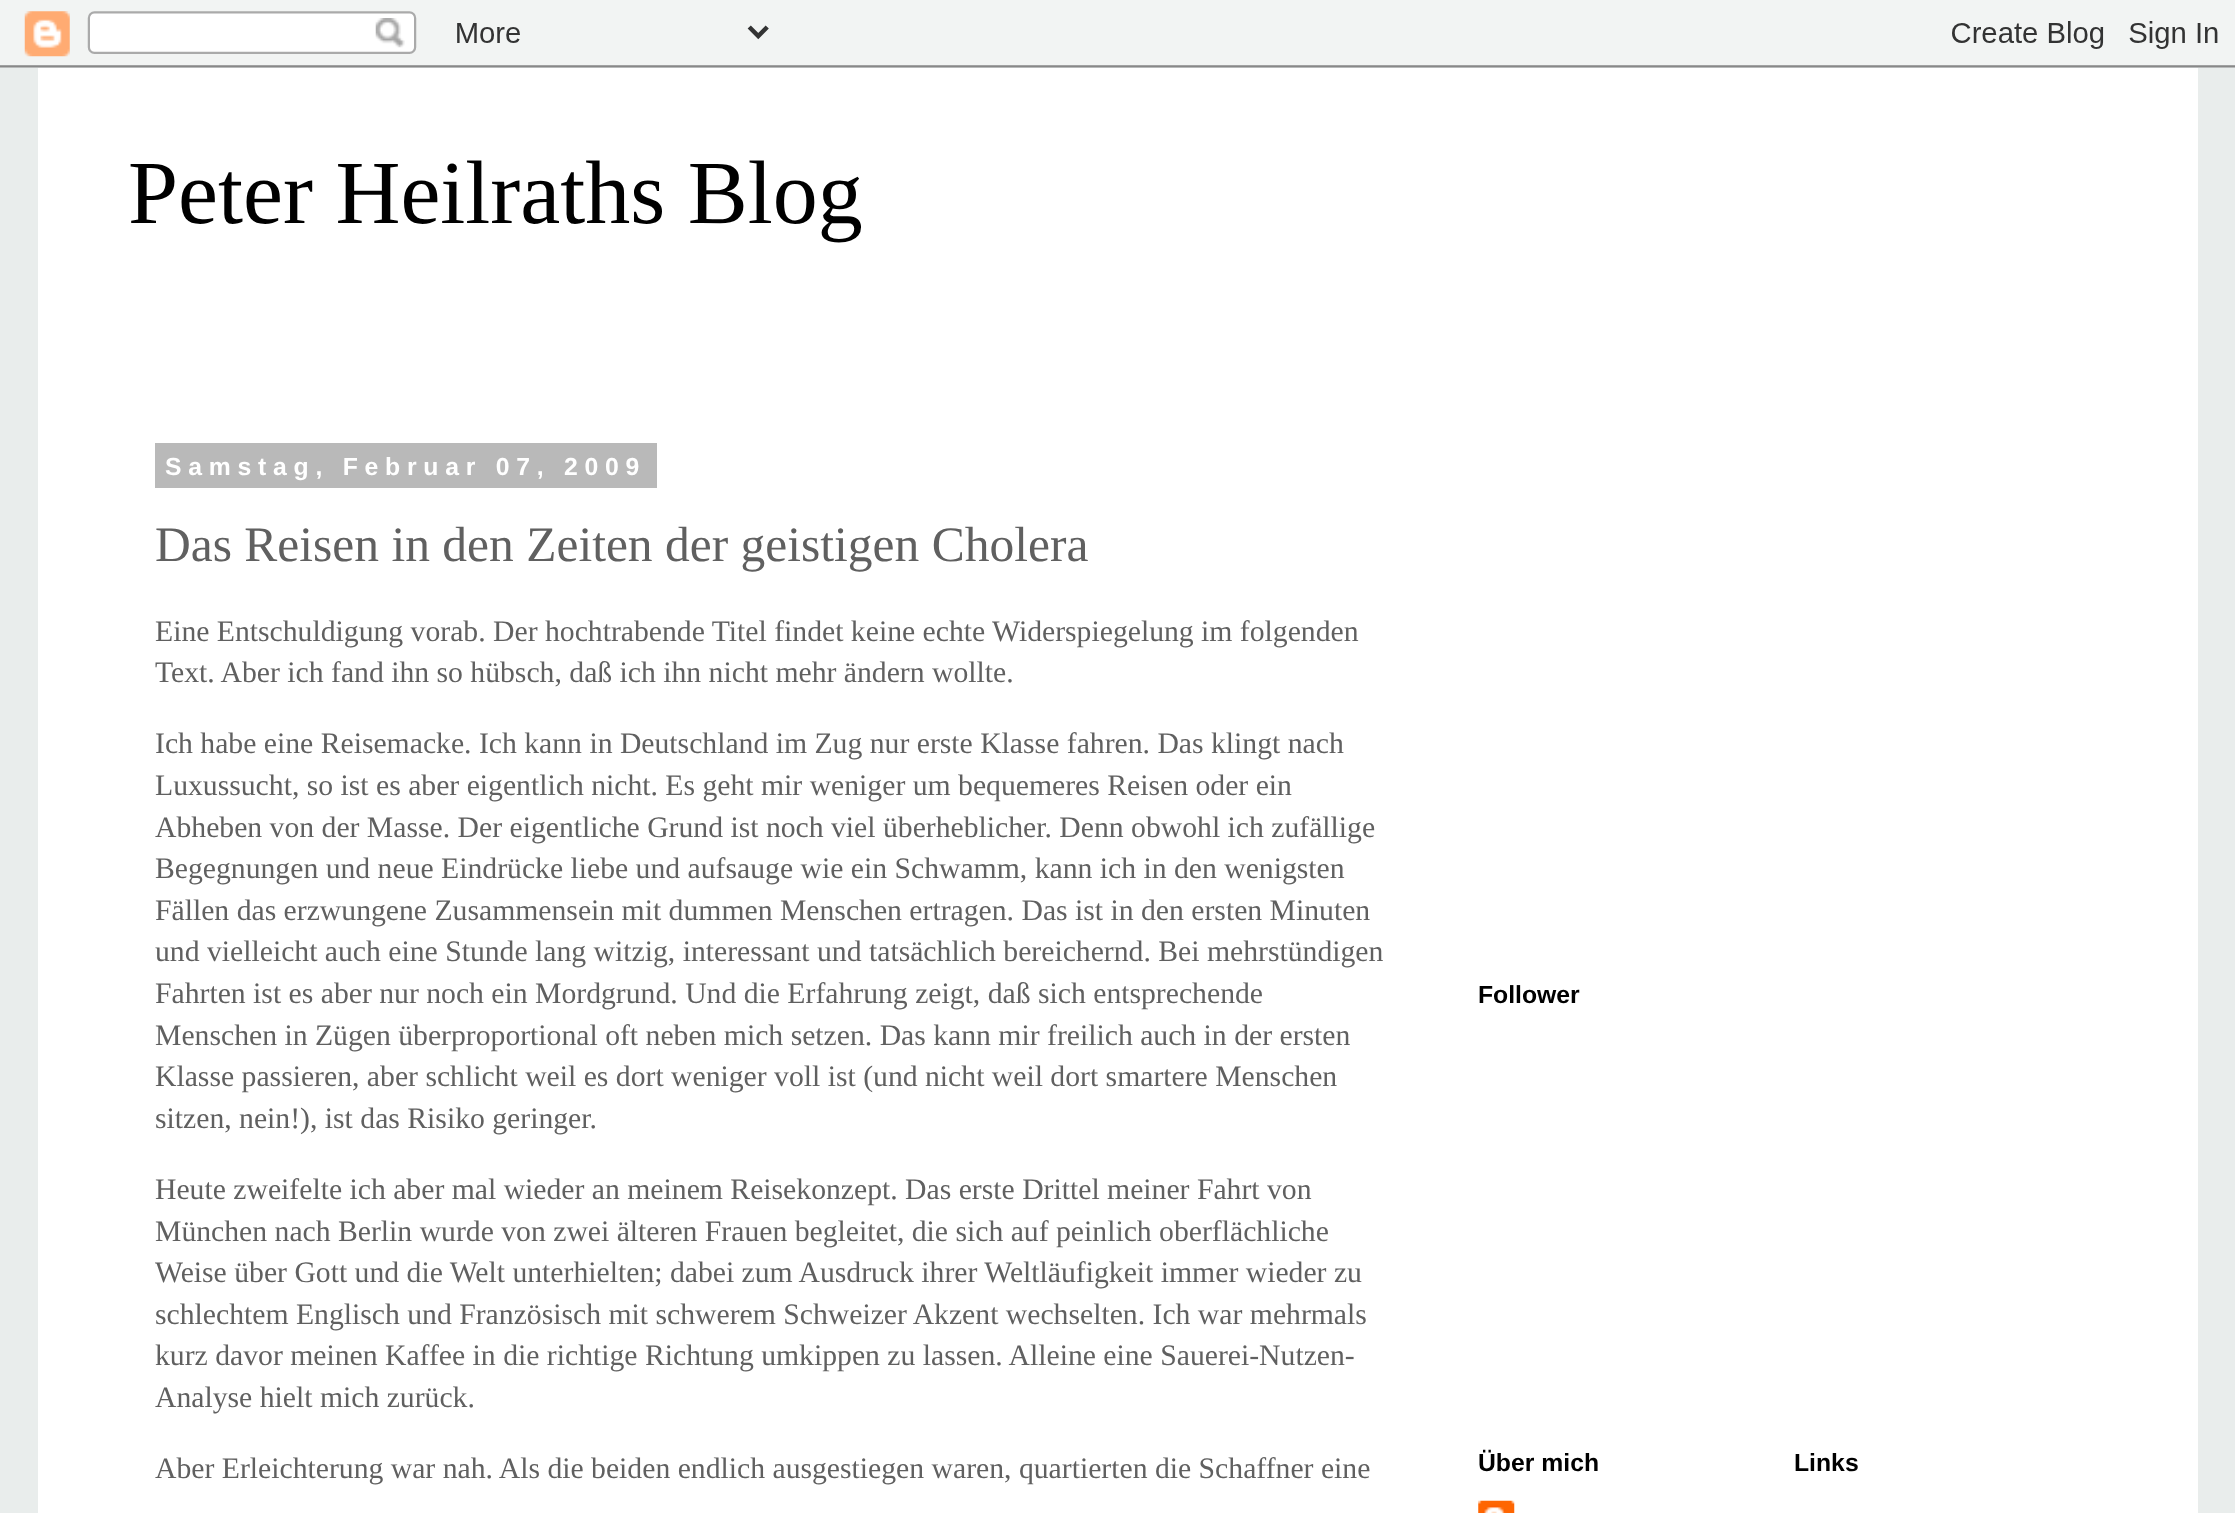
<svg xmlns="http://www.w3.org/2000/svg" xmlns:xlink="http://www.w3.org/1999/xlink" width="2235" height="1513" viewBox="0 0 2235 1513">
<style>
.cls-1{font:90px Liberation Serif;fill:#000000}
.cls-2{font:bold 24.75px Liberation Sans;letter-spacing:6.75px;fill:#ffffff}
.cls-3{font:49.5px Liberation Serif;fill:#606060}
.cls-4{font:29.7px Liberation Serif;fill:#606060}
.cls-5{font:bold 24.75px Liberation Sans;fill:#000000}
</style>
<rect width="100%" height="100%" fill="#e9edec"/>
<image xlink:href="image0.png" x="0" y="0" width="2235" height="68"/>
<rect fill="#ffffff" x="38" y="68" width="2160" height="1445"/>
<rect fill="#b9b9b9" x="155" y="443" width="502" height="45"/>
<image xlink:href="image1.png" x="1478" y="1500" width="37" height="13"/>
<text class="cls-1" x="128" y="223">Peter Heilraths Blog</text>
<text class="cls-2" x="165" y="475">Samstag, Februar 07, 2009</text>
<text class="cls-3" x="155" y="561">Das Reisen in den Zeiten der geistigen Cholera</text>
<text class="cls-4"><tspan x="155" y="641">Eine Entschuldigung vorab. Der hochtrabende Titel findet keine echte Widerspiegelung im folgenden</tspan><tspan x="155" y="682">Text. Aber ich fand ihn so hübsch, daß ich ihn nicht mehr ändern wollte.</tspan></text>
<text class="cls-4"><tspan x="155" y="753">Ich habe eine Reisemacke. Ich kann in Deutschland im Zug nur erste Klasse fahren. Das klingt nach</tspan><tspan x="155" y="795">Luxussucht, so ist es aber eigentlich nicht. Es geht mir weniger um bequemeres Reisen oder ein</tspan><tspan x="155" y="837">Abheben von der Masse. Der eigentliche Grund ist noch viel überheblicher. Denn obwohl ich zufällige</tspan><tspan x="155" y="878">Begegnungen und neue Eindrücke liebe und aufsauge wie ein Schwamm, kann ich in den wenigsten</tspan><tspan x="155" y="920">Fällen das erzwungene Zusammensein mit dummen Menschen ertragen. Das ist in den ersten Minuten</tspan><tspan x="155" y="961">und vielleicht auch eine Stunde lang witzig, interessant und tatsächlich bereichernd. Bei mehrstündigen</tspan><tspan x="155" y="1003">Fahrten ist es aber nur noch ein Mordgrund. Und die Erfahrung zeigt, daß sich entsprechende</tspan><tspan x="155" y="1045">Menschen in Zügen überproportional oft neben mich setzen. Das kann mir freilich auch in der ersten</tspan><tspan x="155" y="1086">Klasse passieren, aber schlicht weil es dort weniger voll ist (und nicht weil dort smartere Menschen</tspan><tspan x="155" y="1128">sitzen, nein!), ist das Risiko geringer.</tspan></text>
<text class="cls-4"><tspan x="155" y="1199">Heute zweifelte ich aber mal wieder an meinem Reisekonzept. Das erste Drittel meiner Fahrt von</tspan><tspan x="155" y="1241">München nach Berlin wurde von zwei älteren Frauen begleitet, die sich auf peinlich oberflächliche</tspan><tspan x="155" y="1282">Weise über Gott und die Welt unterhielten; dabei zum Ausdruck ihrer Weltläufigkeit immer wieder zu</tspan><tspan x="155" y="1324">schlechtem Englisch und Französisch mit schwerem Schweizer Akzent wechselten. Ich war mehrmals</tspan><tspan x="155" y="1365">kurz davor meinen Kaffee in die richtige Richtung umkippen zu lassen. Alleine eine Sauerei-Nutzen-</tspan><tspan x="155" y="1407">Analyse hielt mich zurück.</tspan></text>
<text class="cls-4" x="155" y="1478">Aber Erleichterung war nah. Als die beiden endlich ausgestiegen waren, quartierten die Schaffner eine</text>
<text class="cls-5" x="1478" y="1003">Follower</text>
<text class="cls-5" x="1478" y="1471">Über mich</text>
<text class="cls-5" x="1794" y="1471">Links</text>
</svg>
